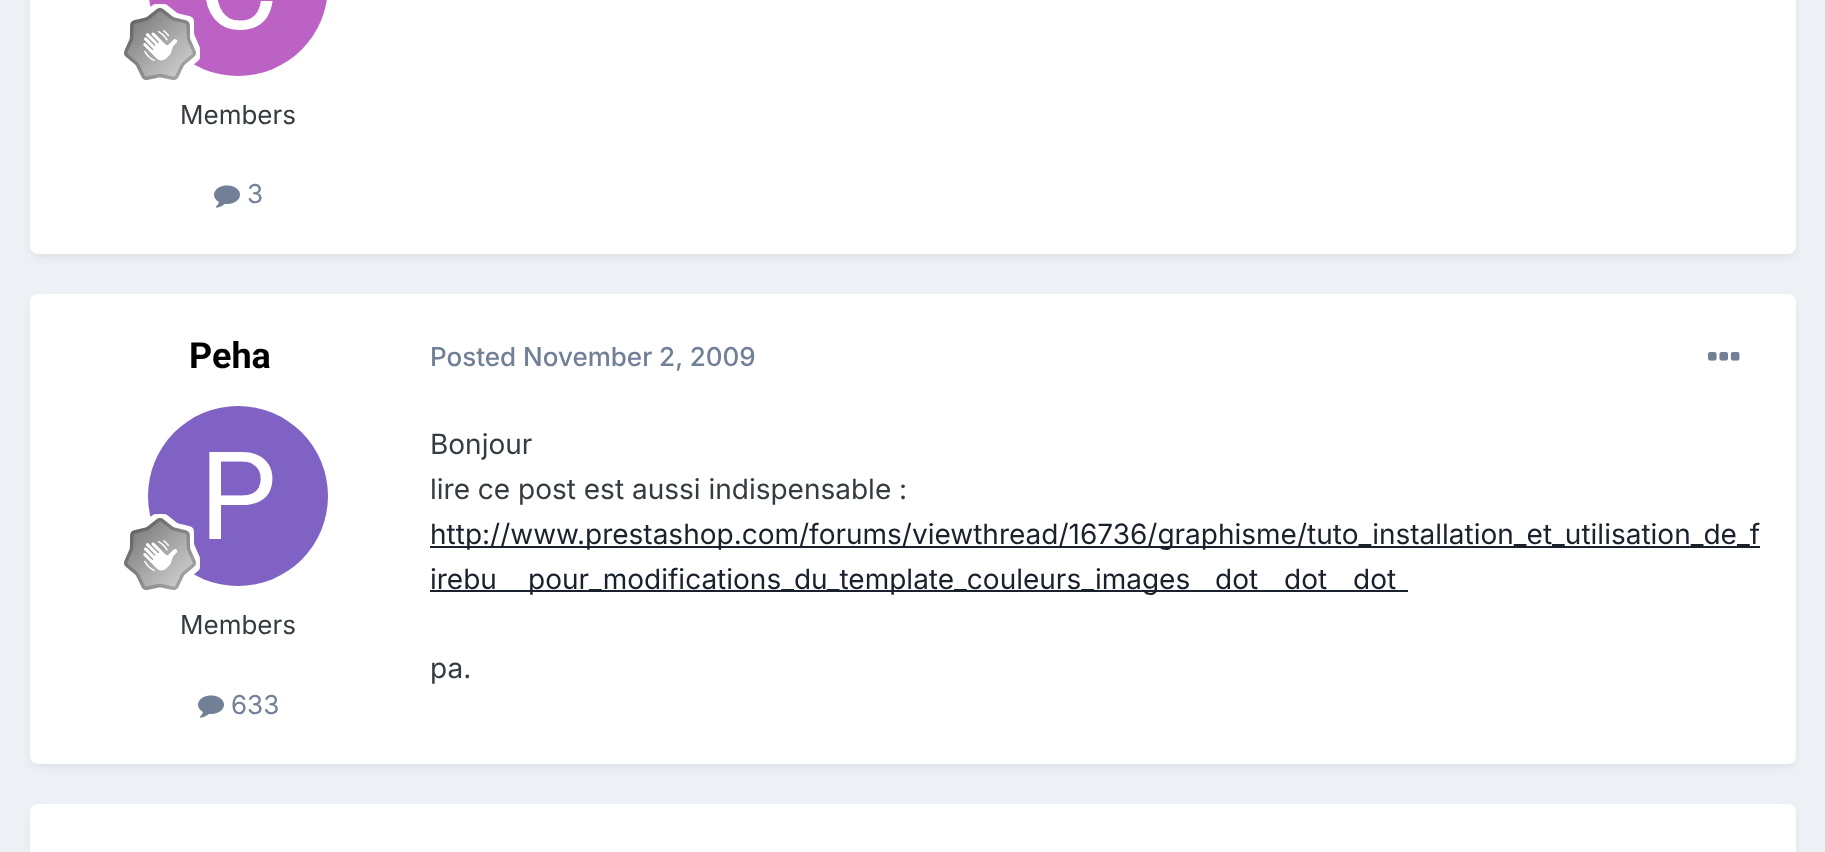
<svg xmlns="http://www.w3.org/2000/svg" xmlns:xlink="http://www.w3.org/1999/xlink" width="1825" height="852" viewBox="0 0 1825 852">
<style>
.cls-1{font:26px Inter;fill:#353c41}
.cls-2{font:26px Inter;fill:#718096}
.cls-3{font:bold 36px Roboto;fill:#000000}
.cls-4{font:500 26px Inter;fill:#718096}
.cls-5{font:28px Inter;fill:#353c41}
.cls-6{font:28px Inter;fill:#1a202c}
</style>
<rect width="100%" height="100%" fill="#edf0f4"/>
<rect fill="#2d3748" fill-opacity="0.1" filter="blur(4px)" x="32" y="-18" width="1762" height="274" rx="6"/>
<rect fill="#ffffff" x="30" y="-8" width="1766" height="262" rx="8"/>
<image xlink:href="image0.png" x="149" y="0" width="178" height="76"/>
<image xlink:href="image1.png" x="124" y="4" width="76" height="76"/>
<image xlink:href="image2.png" x="214" y="185" width="26" height="23"/>
<rect fill="#2d3748" fill-opacity="0.1" filter="blur(4px)" x="32" y="300" width="1762" height="466" rx="6"/>
<rect fill="#ffffff" x="30" y="294" width="1766" height="470" rx="8"/>
<image xlink:href="image3.png" x="148" y="406" width="180" height="180"/>
<image xlink:href="image4.png" x="124" y="514" width="76" height="76"/>
<image xlink:href="image2.png" x="198" y="695" width="26" height="23"/>
<image xlink:href="image5.png" x="1708" y="352" width="32" height="9"/>
<rect fill="#1a202c" x="430" y="546" width="1330" height="2"/>
<rect fill="#1a202c" x="430" y="590" width="978" height="2"/>
<rect fill="#2d3748" fill-opacity="0.1" filter="blur(4px)" x="32" y="810" width="1762" height="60" rx="6"/>
<rect fill="#ffffff" x="30" y="804" width="1766" height="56" rx="8"/>
<text class="cls-1" x="180" y="124">Members</text>
<text class="cls-2" x="247" y="203">3</text>
<text class="cls-3" x="189" y="368">Peha</text>
<text class="cls-1" x="180" y="634">Members</text>
<text class="cls-2" x="231" y="714">633</text>
<text class="cls-4" x="430" y="366">Posted November 2, 2009</text>
<text class="cls-5"><tspan x="430" y="454">Bonjour</tspan><tspan x="430" y="499">lire ce post est aussi indispensable :</tspan></text>
<text class="cls-6"><tspan x="430" y="544">http://www.prestashop.com/forums/viewthread/16736/graphisme/tuto_installation_et_utilisation_de_f</tspan><tspan x="430" y="589">irebu</tspan></text>
<text class="cls-6" x="528" y="589">pour_modifications_du_template_couleurs_images</text>
<text class="cls-6" x="1215" y="589">dot</text>
<text class="cls-6" x="1284" y="589">dot</text>
<text class="cls-6" x="1353" y="589">dot</text>
<text class="cls-5" x="430" y="678">pa.</text>
</svg>
